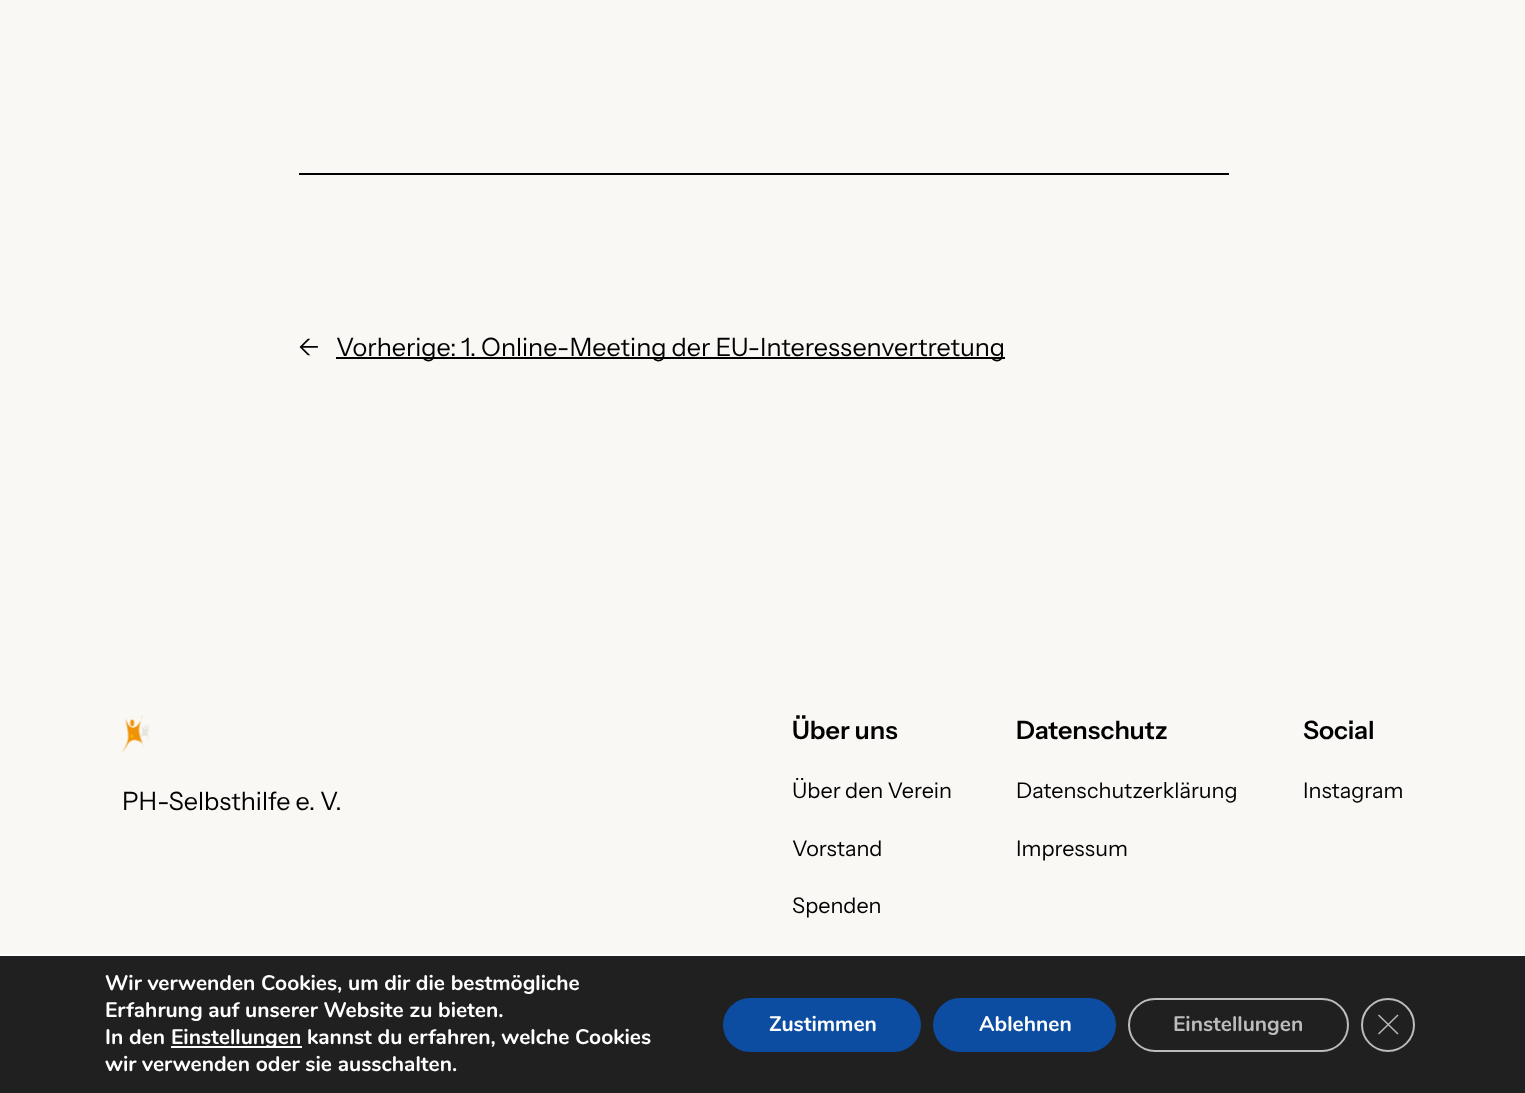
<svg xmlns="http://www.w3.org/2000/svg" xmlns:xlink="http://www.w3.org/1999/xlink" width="1525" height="1093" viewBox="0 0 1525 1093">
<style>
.cls-1{font:25.2px Instrument Sans;fill:#000000}
.cls-2{font:600 25.2px Instrument Sans;fill:#000000}
.cls-3{font:21.6px Instrument Sans;fill:#000000}
.cls-4{font:bold 21px Nunito;fill:#ffffff}
.cls-5{font:bold 21px Nunito;fill:#bcbcbc}
</style>
<rect width="100%" height="100%" fill="#f9f8f5"/>
<rect fill="#000000" x="299" y="173" width="930" height="2"/>
<rect fill="#000000" x="336" y="357" width="669" height="2"/>
<image xlink:href="image0.png" x="121" y="715" width="29" height="38"/>
<rect fill="#202020" x="0" y="956" width="1525" height="137"/>
<rect fill="#ffffff" x="0" y="954" width="1525" height="2"/>
<rect fill="#ffffff" x="171" y="1046" width="131" height="2"/>
<rect fill="#0c4da2" x="723" y="998" width="198" height="54" rx="27"/>
<rect fill="#0c4da2" x="933" y="998" width="183" height="54" rx="27"/>
<rect fill="none" stroke="#bcbcbc" stroke-width="2" x="1129" y="999" width="219" height="52" rx="26"/>
<circle fill="none" stroke="#bcbcbc" stroke-width="2" cx="1388" cy="1025" r="26"/>
<path fill="#bcbcbc" d="M1397.5 1014.5L1398.5 1015.5L1379 1034.5L1378 1033.5Z"/>
<path fill="#bcbcbc" d="M1378 1015.5L1379 1014.5L1398.5 1033.5L1397.5 1034.5Z"/>
<text class="cls-1" x="298" y="356">←</text>
<text class="cls-1" x="336" y="356">Vorherige:</text>
<text class="cls-1" x="461" y="356">1. Online-Meeting der EU-Interessenvertretung</text>
<text class="cls-1" x="122" y="810">PH-Selbsthilfe e. V.</text>
<text class="cls-2" x="792" y="739">Über uns</text>
<text class="cls-3" x="792" y="798">Über den Verein</text>
<text class="cls-3" x="792" y="856">Vorstand</text>
<text class="cls-3" x="792" y="913">Spenden</text>
<text class="cls-2" x="1016" y="739">Datenschutz</text>
<text class="cls-3" x="1016" y="798">Datenschutzerklärung</text>
<text class="cls-3" x="1016" y="856">Impressum</text>
<text class="cls-2" x="1303" y="739">Social</text>
<text class="cls-3" x="1303" y="798">Instagram</text>
<text class="cls-4"><tspan x="105" y="990">Wir verwenden Cookies, um dir die bestmögliche</tspan><tspan x="105" y="1017">Erfahrung auf unserer Website zu bieten.</tspan><tspan x="105" y="1044">In den</tspan></text>
<text class="cls-4" x="171" y="1044">Einstellungen kannst du erfahren, welche Cookies</text>
<text class="cls-4" x="105" y="1071">wir verwenden oder sie ausschalten.</text>
<text class="cls-4" x="769" y="1031">Zustimmen</text>
<text class="cls-4" x="979" y="1031">Ablehnen</text>
<text class="cls-5" x="1173" y="1031">Einstellungen</text>
</svg>
